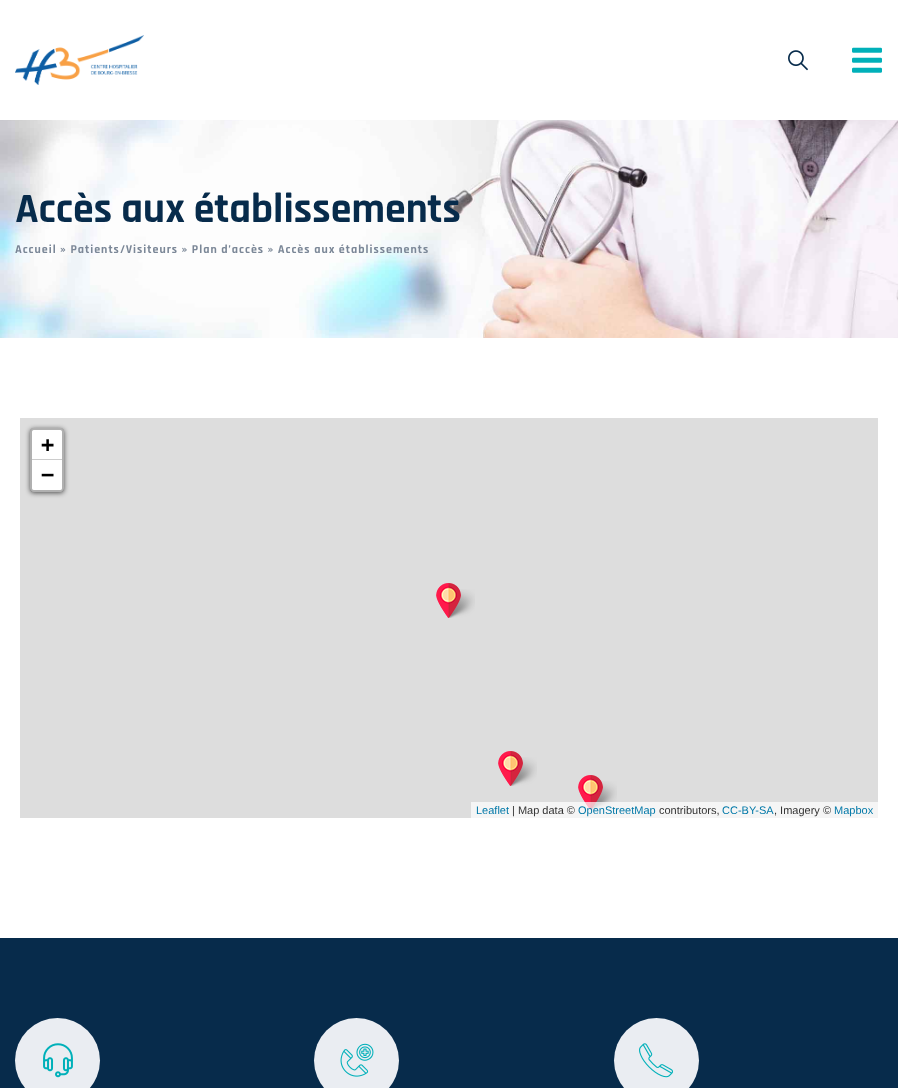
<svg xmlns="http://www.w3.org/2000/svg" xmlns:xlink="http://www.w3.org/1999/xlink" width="898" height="1088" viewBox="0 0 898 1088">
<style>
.cls-1{font:bold 42px Rajdhani;fill:#072b4b}
.cls-2{font:bold 12px Rajdhani;letter-spacing:1px;fill:#7b8797}
.cls-3{font:bold 22px DejaVu Sans Mono;fill:#000000}
.cls-4{font:11px Liberation Sans;fill:#0078a8}
.cls-5{font:11px Liberation Sans;fill:#333333}
</style>
<defs>
<clipPath id="clip1"><path d="M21 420H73V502H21ZM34 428H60C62 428 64 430 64 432V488C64 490 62 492 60 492H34C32 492 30 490 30 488V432C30 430 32 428 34 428Z" clip-rule="evenodd"/></clipPath>
</defs>
<rect width="100%" height="100%" fill="#ffffff"/>
<image xlink:href="image0.png" x="15" y="35" width="129" height="50"/>
<image xlink:href="image1.png" x="788" y="50" width="20" height="21"/>
<image xlink:href="image2.png" x="852" y="47" width="30" height="26"/>
<image xlink:href="image3.png" x="0" y="120" width="898" height="218"/>
<rect fill="#dddddd" x="20" y="418" width="858" height="400"/>
<g clip-path="url(#clip1)">
<rect fill="#000000" fill-opacity="0.65" filter="blur(2.5px)" x="30" y="429" width="34" height="64" rx="4"/>
</g>
<rect fill="none" stroke="#000000" stroke-opacity="0.2" stroke-width="2" x="31" y="429" width="32" height="62" rx="3"/>
<path fill="#ffffff" d="M34 430H60C61 430 62 431 62 432V460H32V432C32 431 33 430 34 430Z"/>
<rect fill="#cccccc" x="32" y="459" width="30" height="1"/>
<path fill="#ffffff" d="M32 460H62V488C62 489 61 490 60 490H34C33 490 32 489 32 488Z"/>
<image xlink:href="image5.png" x="589" y="781" width="28" height="29"/>
<image xlink:href="image4.png" x="578" y="775" width="25" height="35"/>
<rect fill="#ffffff" fill-opacity="0.7" x="471" y="802" width="407" height="16"/>
<image xlink:href="image5.png" x="447" y="589" width="28" height="29"/>
<image xlink:href="image4.png" x="436" y="583" width="25" height="35"/>
<image xlink:href="image5.png" x="509" y="757" width="28" height="29"/>
<image xlink:href="image4.png" x="498" y="751" width="25" height="35"/>
<rect fill="#072b4b" x="0" y="938" width="898" height="150"/>
<circle fill="#eaedf2" cx="57.5" cy="1060.5" r="42.5"/>
<image xlink:href="image6.png" x="43" y="1043" width="30" height="35"/>
<circle fill="#eaedf2" cx="356.5" cy="1060.5" r="42.5"/>
<image xlink:href="image7.png" x="340" y="1043" width="34" height="34"/>
<circle fill="#eaedf2" cx="656.5" cy="1060.5" r="42.5"/>
<image xlink:href="image8.png" x="639" y="1043" width="34" height="35"/>
<text class="cls-1" x="15" y="222">Accès aux établissements</text>
<text class="cls-2" x="15" y="253">Accueil » Patients/Visiteurs » Plan d’accès » Accès aux établissements</text>
<text class="cls-3"><tspan x="41" y="452">+</tspan><tspan x="41" y="482">−</tspan></text>
<text class="cls-4" x="476" y="814">Leaflet</text>
<text class="cls-5" x="512" y="814">| Map data ©</text>
<text class="cls-4" x="578" y="814">OpenStreetMap</text>
<text class="cls-5" x="659" y="814">contributors,</text>
<text class="cls-4" x="722" y="814">CC-BY-SA</text>
<text class="cls-5" x="774" y="814">, Imagery ©</text>
<text class="cls-4" x="834" y="814">Mapbox</text>
</svg>
